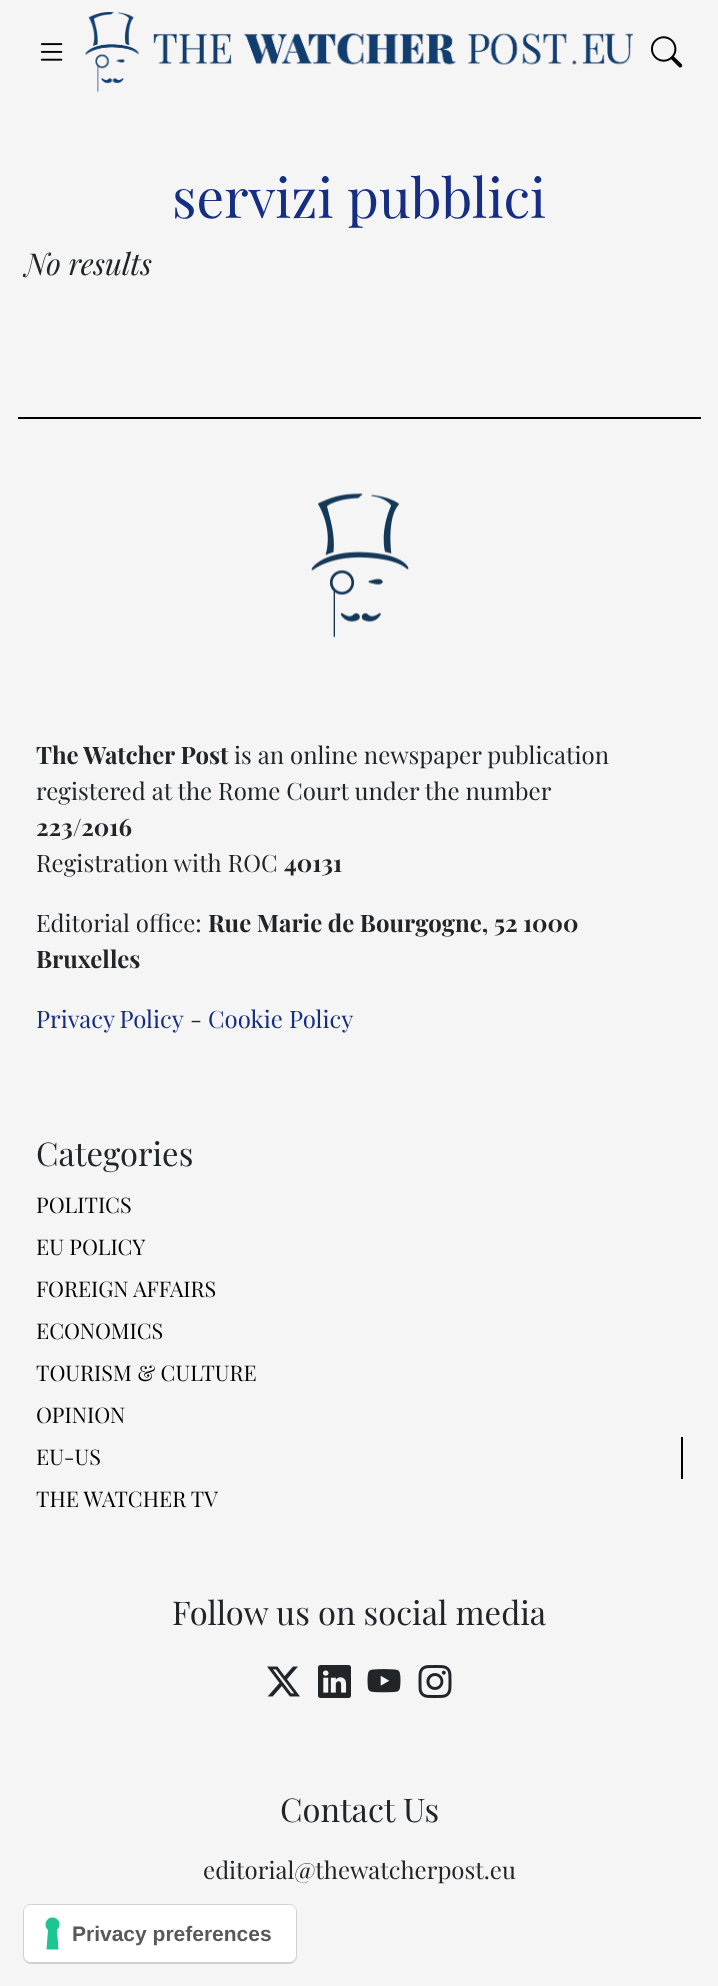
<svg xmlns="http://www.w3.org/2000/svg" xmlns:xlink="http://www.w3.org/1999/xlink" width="718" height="1986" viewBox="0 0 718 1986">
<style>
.cls-1{font:54.75px Playfair Display;fill:#152d83}
.cls-2{font:italic 30px Playfair Display;fill:#212529}
.cls-3{font:bold 24px Playfair Display;fill:#212529}
.cls-4{font:24px Playfair Display;fill:#212529}
.cls-5{font:24px Playfair Display;fill:#152d83}
.cls-6{font:32.75px Playfair Display;fill:#212529}
.cls-7{font:21.6px Playfair Display;fill:#000000}
.cls-8{font:bold 21px Liberation Sans;fill:#595959}
</style>
<rect width="100%" height="100%" fill="#f5f5f5"/>
<image xlink:href="image0.png" x="40" y="43" width="23" height="18"/>
<image xlink:href="image1.png" x="85" y="12" width="548" height="80"/>
<image xlink:href="image2.png" x="651" y="36" width="32" height="32"/>
<rect fill="#000000" x="18" y="417" width="683" height="2"/>
<image xlink:href="image3.png" x="311" y="493" width="98" height="145"/>
<rect fill="#000000" x="681" y="1437" width="2" height="42"/>
<image xlink:href="image4.png" x="267" y="1666" width="33" height="31"/>
<image xlink:href="image5.png" x="318" y="1665" width="33" height="33"/>
<image xlink:href="image6.png" x="367" y="1669" width="34" height="24"/>
<image xlink:href="image7.png" x="418" y="1665" width="34" height="33"/>
<rect fill="none" stroke="#d0d0d0" stroke-width="2" x="24" y="1905" width="272" height="58" rx="7"/>
<rect fill="#ffffff" x="24" y="1905" width="272" height="57" rx="6"/>
<path fill="#1cc691" fill-rule="evenodd" d="M52.5 1917.5C59 1917.5 62 1925.5 57 1930L58.5 1949.5H46.5L48 1930C43 1925.5 46 1917.5 52.5 1917.5Z"/>
<text class="cls-1" x="172" y="218">servizi pubblici</text>
<text class="cls-2" x="25" y="275">No results</text>
<text class="cls-3" x="36" y="764">The Watcher Post</text>
<text class="cls-4" x="234" y="764">is an online newspaper publication</text>
<text class="cls-4" x="36" y="800">registered at the Rome Court under the number</text>
<text class="cls-3" x="36" y="836">223/2016</text>
<text class="cls-4" x="36" y="872">Registration with ROC</text>
<text class="cls-3" x="284" y="872">40131</text>
<text class="cls-4" x="36" y="932">Editorial office:</text>
<text class="cls-3" x="208" y="932">Rue Marie de Bourgogne, 52 1000</text>
<text class="cls-3" x="36" y="968">Bruxelles</text>
<text class="cls-5" x="36" y="1028" word-spacing="-1">Privacy Policy</text>
<text class="cls-4" x="190" y="1028">-</text>
<text class="cls-5" x="208" y="1028">Cookie Policy</text>
<text class="cls-6" x="36" y="1166">Categories</text>
<text class="cls-7"><tspan x="36" y="1213">POLITICS</tspan><tspan x="36" y="1255">EU POLICY</tspan><tspan x="36" y="1297">FOREIGN AFFAIRS</tspan><tspan x="36" y="1339">ECONOMICS</tspan><tspan x="36" y="1381">TOURISM &amp; CULTURE</tspan><tspan x="36" y="1423">OPINION</tspan><tspan x="36" y="1465">EU-US</tspan><tspan x="36" y="1507">THE WATCHER TV</tspan></text>
<text class="cls-6" x="172" y="1625">Follow us on social media</text>
<text class="cls-6" x="280" y="1822">Contact Us</text>
<text class="cls-4" x="203" y="1879">editorial@thewatcherpost.eu</text>
<text class="cls-8" x="72" y="1941">Privacy preferences</text>
</svg>
